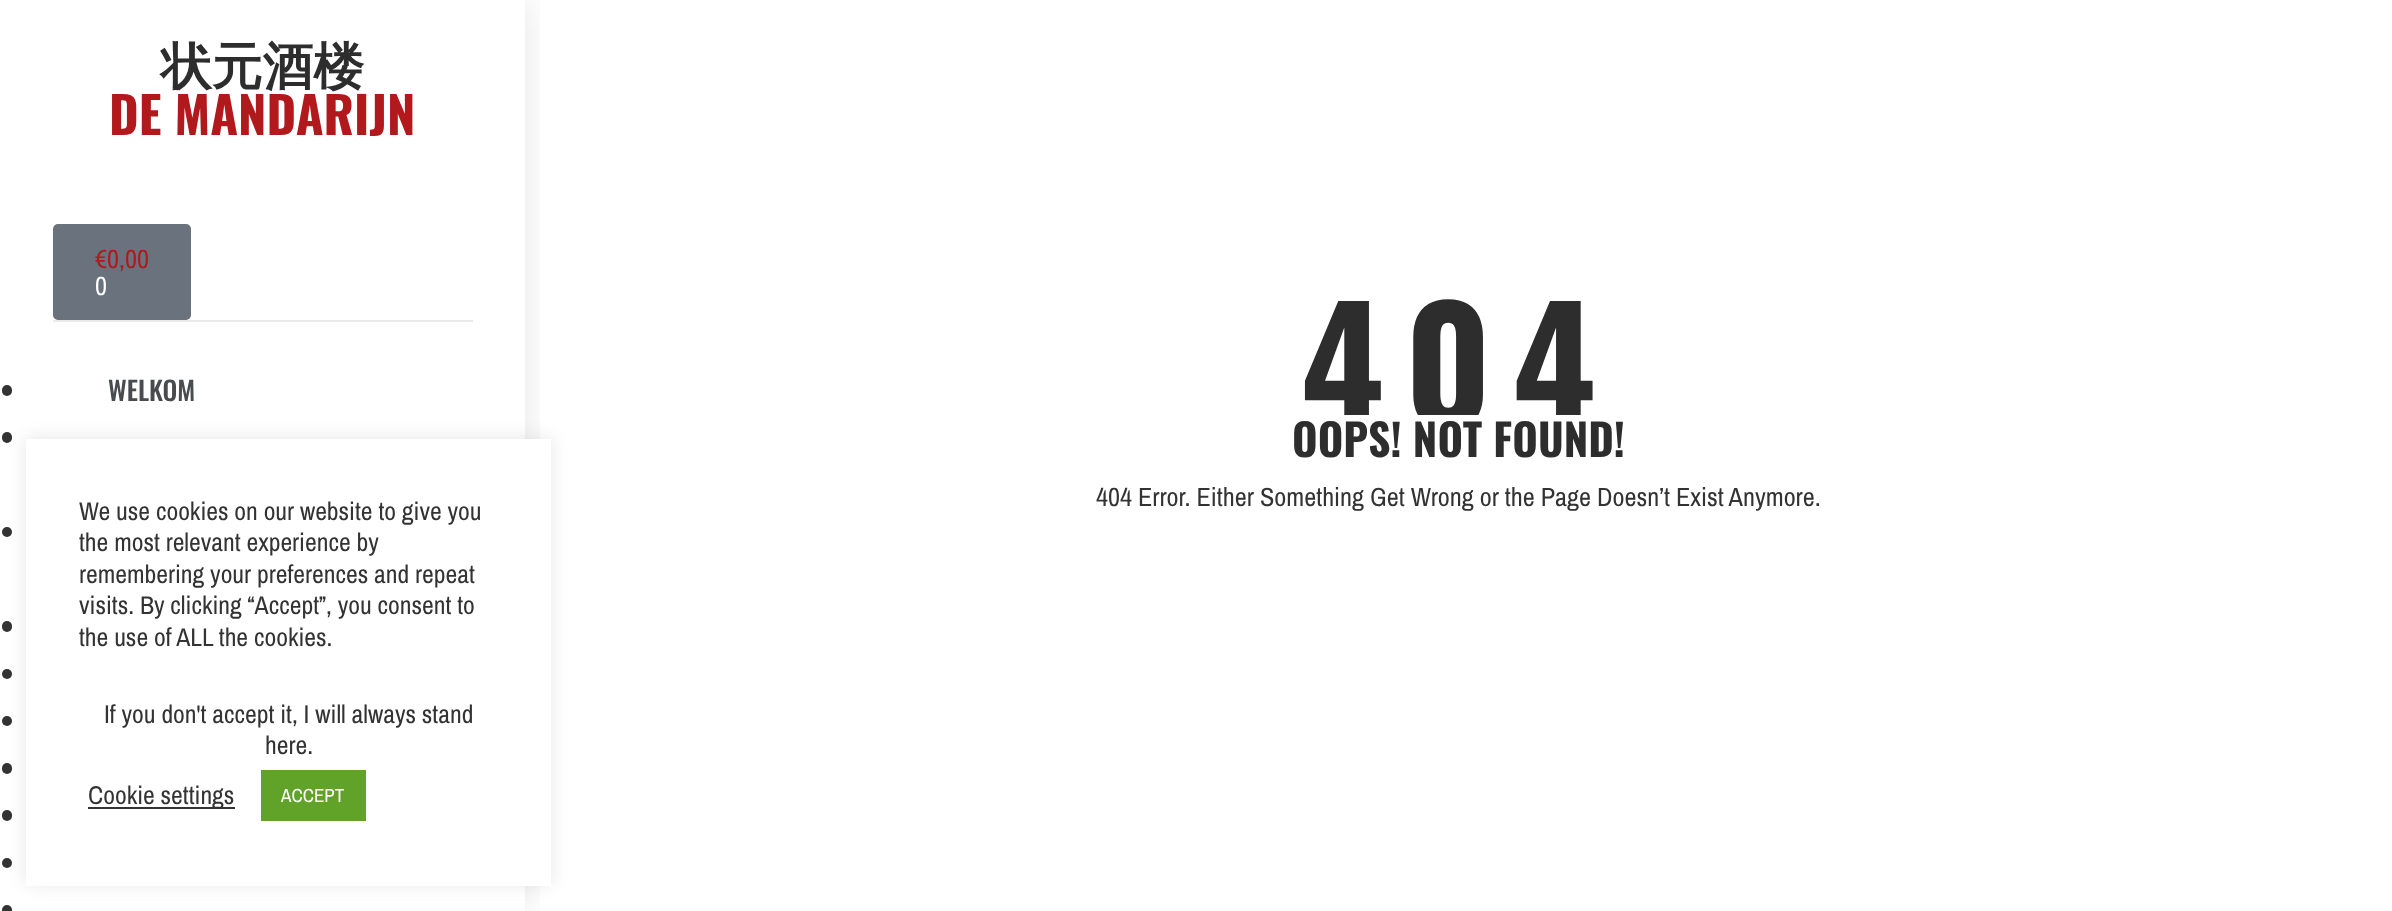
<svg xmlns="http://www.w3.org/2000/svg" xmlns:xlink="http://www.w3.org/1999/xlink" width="2392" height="911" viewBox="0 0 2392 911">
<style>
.cls-1{font:bold 50.75px WenQuanYi Zen Hei;fill:#2e2d2d}
.cls-2{font:bold 50.75px Oswald;fill:#b2191c}
.cls-3{font:26.25px Archivo Narrow;fill:#b2191c}
.cls-4{font:26.25px Archivo Narrow;fill:#ffffff}
.cls-5{font:500 26.25px Oswald;fill:#494c4f}
.cls-6{font:bold 158px Oswald;letter-spacing:21px;fill:#2e2d2d}
.cls-7{font:bold 43.75px Oswald;fill:#2e2d2d}
.cls-8{font:26.25px Archivo Narrow;fill:#333333}
.cls-9{font:25.7px Archivo Narrow;fill:#333333}
.cls-10{font:19px Archivo Narrow;fill:#ffffff}
</style>
<defs>
<clipPath id="clip1"><rect x="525" y="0" width="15" height="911"/></clipPath>
</defs>
<rect width="100%" height="100%" fill="#ffffff"/>
<g clip-path="url(#clip1)">
<rect fill="#000000" fill-opacity="0.1" filter="blur(17.5px)" x="0" y="0" width="525" height="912"/>
</g>
<rect fill="#eaeaea" x="53" y="320" width="420" height="2"/>
<rect fill="#69727d" x="53" y="224" width="138" height="96" rx="5"/>
<rect fill="#333333" x="2" y="385" width="10" height="11" rx="5"/>
<rect fill="#333333" x="2" y="432" width="10" height="11" rx="5"/>
<circle fill="#333333" cx="7" cy="532" r="5"/>
<rect fill="#333333" x="2" y="621" width="10" height="11" rx="5"/>
<circle fill="#333333" cx="7" cy="674" r="5"/>
<circle fill="#333333" cx="7" cy="721" r="5"/>
<rect fill="#333333" x="2" y="763" width="10" height="11" rx="5"/>
<rect fill="#333333" x="2" y="810" width="10" height="11" rx="5"/>
<circle fill="#333333" cx="7" cy="863" r="5"/>
<circle fill="#333333" cx="7" cy="910" r="5"/>
<rect fill="#acabab" fill-opacity="0.3" filter="blur(9px)" x="26" y="438" width="525" height="446"/>
<rect fill="#ffffff" x="26" y="439" width="525" height="447"/>
<rect fill="#333333" x="88" y="807" width="147" height="2"/>
<rect fill="#61a229" x="261" y="770" width="105" height="51"/>
<text class="cls-1" x="161" y="84">状元酒楼</text>
<text class="cls-2" x="109" y="135">DE MANDARIJN</text>
<text class="cls-3" x="95" y="268">€0,00</text>
<text class="cls-4" x="95" y="295">0</text>
<text class="cls-5" x="108" y="401">WELKOM</text>
<text class="cls-6" x="1301" y="429">404</text>
<rect fill="#ffffff" x="1344" y="415" width="237" height="17"/>
<text class="cls-7" x="1292" y="457">OOPS! NOT FOUND!</text>
<text class="cls-8" x="1096" y="506">404 Error. Either Something Get Wrong or the Page Doesn’t Exist Anymore.</text>
<text class="cls-9"><tspan x="79" y="520">We use cookies on our website to give you</tspan><tspan x="79" y="551">the most relevant experience by</tspan><tspan x="79" y="583">remembering your preferences and repeat</tspan><tspan x="79" y="614">visits. By clicking “Accept”, you consent to</tspan><tspan x="79" y="646">the use of ALL the cookies.</tspan></text>
<text class="cls-9" x="104" y="723">If you don't accept it, I will always stand</text>
<text class="cls-9" x="265" y="754">here.</text>
<text class="cls-9" x="88" y="804">Cookie settings</text>
<text class="cls-10" x="281" y="802">ACCEPT</text>
</svg>
